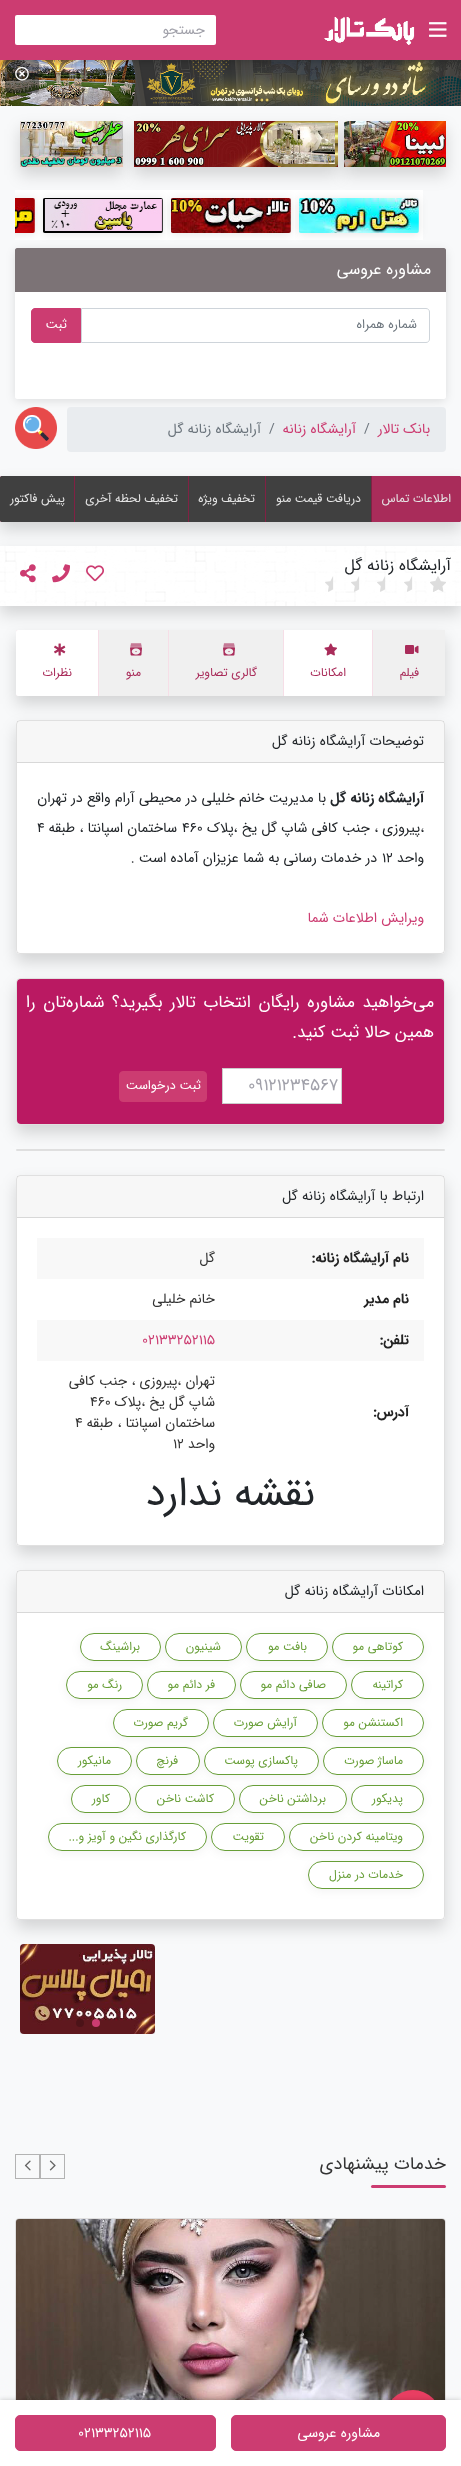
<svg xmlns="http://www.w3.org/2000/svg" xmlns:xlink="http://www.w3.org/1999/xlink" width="461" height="2466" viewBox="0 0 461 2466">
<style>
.cls-1{font:14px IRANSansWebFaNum;direction:rtl;fill:#a1a1aa}
.cls-2{font:16px IRANSansWebFaNum;direction:rtl;fill:#ffffff}
.cls-3{font:12.75px IRANSansWebFaNum;direction:rtl;fill:#6c757d}
.cls-4{font:12.75px IRANSansWebFaNum;direction:rtl;fill:#ffffff}
.cls-5{font:14px IRANSansWebFaNum;direction:rtl;fill:#cc3c71}
.cls-6{font:14px IRANSansWebFaNum;fill:#6c757d}
.cls-7{font:14px IRANSansWebFaNum;direction:rtl;fill:#6c757d}
.cls-8{font:12px IRANSansWebFaNum;direction:rtl;fill:#e6e6e6}
.cls-9{font:16px IRANSansWebFaNum;direction:rtl;fill:#212529}
.cls-10{font:12px IRANSansWebFaNum;direction:rtl;fill:#a92c5a}
.cls-11{font:14px IRANSansWebFaNum;direction:rtl;fill:#212529}
.cls-12{font:bold 14px IRANSansWebFaNum;direction:rtl;fill:#212529}
.cls-13{font:14px IRANSansWebFaNum;fill:#212529}
.cls-14{font:17px IRANSansWebFaNum;direction:rtl;fill:#ffffff}
.cls-15{font:17px IRANSansWebFaNum;fill:#a1a1aa}
.cls-16{font:bold 14px IRANSansWebFaNum;direction:rtl;fill:#222222}
.cls-17{font:14px IRANSansWebFaNum;direction:rtl;fill:#333333}
.cls-18{font:14px IRANSansWebFaNum;fill:#cc3c71}
.cls-19{font:14px IRANSansWebFaNum;fill:#333333}
.cls-20{font:40px IRANSansWebFaNum;direction:rtl;fill:#212529}
.cls-21{font:12px IRANSansWebFaNum;direction:rtl;fill:#689f38}
.cls-22{font:18px IRANSansWebFaNum;direction:rtl;fill:#333333}
.cls-23{font:14px IRANSansWebFaNum;direction:rtl;fill:#ffffff}
.cls-24{font:14px IRANSansWebFaNum;fill:#ffffff}
</style>
<defs>
<clipPath id="clip1"><rect x="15" y="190" width="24" height="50"/></clipPath>
<clipPath id="clip2"><rect x="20" y="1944" width="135" height="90"/></clipPath>
</defs>
<rect width="100%" height="100%" fill="#f8f9fa"/>
<rect fill="#000000" fill-opacity="0.15" filter="blur(8px)" x="344" y="129" width="102" height="46"/>
<image xlink:href="image4.png" x="344" y="121" width="102" height="46"/>
<rect fill="#000000" fill-opacity="0.15" filter="blur(8px)" x="134" y="129" width="204" height="46"/>
<image xlink:href="image5.png" x="134" y="121" width="204" height="46"/>
<rect fill="#000000" fill-opacity="0.15" filter="blur(8px)" x="20" y="129" width="103" height="46"/>
<image xlink:href="image2.png" x="0" y="60" width="461" height="46"/>
<rect fill="#222222" fill-opacity="0.5" x="5" y="60" width="34" height="33" rx="4"/>
<image xlink:href="image3.png" x="15" y="67" width="14" height="14"/>
<rect fill="#000000" fill-opacity="0.3" filter="blur(5px)" x="0" y="0" width="461" height="60"/>
<rect fill="#cc3c71" x="0" y="0" width="461" height="60"/>
<image xlink:href="image0.png" x="429" y="22" width="18" height="15"/>
<image xlink:href="image1.png" x="324" y="17" width="91" height="28"/>
<rect fill="#ffffff" x="15" y="15" width="201" height="30" rx="2"/>
<image xlink:href="image6.png" x="20" y="121" width="103" height="46"/>
<rect fill="#000000" fill-opacity="0.11" filter="blur(5px)" x="15" y="250" width="431" height="151" rx="5"/>
<rect fill="#ffffff" x="295" y="190" width="128" height="50"/>
<path fill="#7c7376" d="M17 248H444C445 248 446 249 446 250V292H15V250C15 249 16 248 17 248Z"/>
<rect fill="#000000" fill-opacity="0.1" filter="blur(5px)" x="299" y="199" width="120" height="35" rx="2"/>
<image xlink:href="image7.png" x="299" y="198" width="120" height="35"/>
<rect fill="#ffffff" x="167" y="190" width="128" height="50"/>
<rect fill="#000000" fill-opacity="0.1" filter="blur(5px)" x="171" y="199" width="120" height="35" rx="2"/>
<image xlink:href="image8.png" x="171" y="198" width="120" height="35"/>
<rect fill="#ffffff" x="39" y="190" width="128" height="50"/>
<rect fill="#000000" fill-opacity="0.1" filter="blur(5px)" x="43" y="199" width="120" height="35" rx="2"/>
<image xlink:href="image9.png" x="43" y="198" width="120" height="35"/>
<rect fill="#ffffff" x="15" y="190" width="24" height="50"/>
<g clip-path="url(#clip1)">
<rect fill="#000000" fill-opacity="0.1" filter="blur(5px)" x="-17" y="199" width="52" height="35" rx="2"/>
</g>
<image xlink:href="image10.png" x="15" y="198" width="20" height="35"/>
<path fill="#ffffff" d="M15 292H446V397C446 398 445 399 444 399H17C16 399 15 398 15 397Z"/>
<path fill="none" stroke="#ced4da" d="M81.5 308.5H426C428 308.5 429.5 310 429.5 312V339C429.5 341 428 342.5 426 342.5H81.5Z"/>
<path fill="#cc3c71" stroke="#cc3c71" d="M35 308.5H80.5V342.5H35C33 342.5 31.5 341 31.5 339V312C31.5 310 33 308.5 35 308.5Z"/>
<rect fill="#e9ecef" x="67" y="407" width="379" height="45" rx="4"/>
<image xlink:href="image11.png" x="15" y="407" width="42" height="42"/>
<rect fill="#000000" fill-opacity="0.15" filter="blur(8px)" x="0" y="554" width="461" height="60" rx="2"/>
<rect fill="#ffffff" x="0" y="546" width="461" height="60"/>
<image xlink:href="image12.png" x="0" y="546" width="461" height="60"/>
<rect fill="#000000" fill-opacity="0.15" filter="blur(8px)" x="0" y="484" width="461" height="46"/>
<rect fill="#812144" x="0" y="476" width="461" height="46" rx="2"/>
<path fill="#a92c5a" d="M372 476H459C460 476 461 477 461 478V520C461 521 460 522 459 522H372Z"/>
<rect fill="#404040" x="266" y="476" width="105" height="46"/>
<rect fill="#404040" x="189" y="476" width="76" height="46"/>
<rect fill="#404040" x="75" y="476" width="113" height="46"/>
<path fill="#404040" d="M2 476H74V522H2C1 522 0 521 0 520V478C0 477 1 476 2 476Z"/>
<image xlink:href="image13.png" x="430" y="576" width="16" height="16"/>
<image xlink:href="image14.png" x="404" y="576" width="9" height="16"/>
<image xlink:href="image15.png" x="377" y="576" width="9" height="16"/>
<image xlink:href="image16.png" x="351" y="576" width="9" height="16"/>
<image xlink:href="image17.png" x="325" y="576" width="9" height="16"/>
<image xlink:href="image18.png" x="430" y="576" width="8" height="16"/>
<image xlink:href="image19.png" x="86" y="565" width="18" height="17"/>
<image xlink:href="image20.png" x="52" y="564" width="18" height="19"/>
<image xlink:href="image21.png" x="20" y="564" width="16" height="19"/>
<rect fill="#000000" fill-opacity="0.15" filter="blur(8px)" x="16" y="638" width="429" height="66"/>
<rect fill="#f6dee7" x="16" y="630" width="429" height="66" rx="2"/>
<rect fill="#f0f0f0" x="373" y="630" width="72" height="66"/>
<image xlink:href="image22.png" x="405" y="645" width="14" height="9"/>
<rect fill="#ffffff" x="284" y="630" width="88" height="66"/>
<image xlink:href="image23.png" x="324" y="643" width="13" height="13"/>
<rect fill="#f0f0f0" x="169" y="630" width="114" height="66"/>
<image xlink:href="image24.png" x="223" y="643" width="12" height="13"/>
<rect fill="#f0f0f0" x="99" y="630" width="69" height="66"/>
<image xlink:href="image24.png" x="130" y="643" width="12" height="13"/>
<path fill="#ffffff" d="M18 630H98V696H18C17 696 16 695 16 694V632C16 631 17 630 18 630Z"/>
<image xlink:href="image25.png" x="54" y="643" width="12" height="13"/>
<rect fill="#000000" fill-opacity="0.15" filter="blur(8px)" x="16" y="728" width="429" height="234" rx="4"/>
<rect fill="#ffffff" x="16" y="720" width="429" height="234" rx="4"/>
<rect fill="none" stroke="#000000" stroke-opacity="0.12" x="16.5" y="720.5" width="428" height="233" rx="3.5"/>
<rect fill="#000000" fill-opacity="0.03" x="17" y="721" width="427" height="41"/>
<rect fill="#d8d8d8" x="17" y="762" width="427" height="1"/>
<rect fill="#000000" fill-opacity="0.15" filter="blur(8px)" x="16" y="986" width="429" height="147" rx="4"/>
<rect fill="#ffffff" x="16" y="978" width="429" height="147" rx="4"/>
<rect fill="none" stroke="#000000" stroke-opacity="0.12" x="16.5" y="978.5" width="428" height="146" rx="3.5"/>
<rect fill="#ba1962" x="17" y="979" width="427" height="145" rx="4"/>
<rect fill="#ffffff" stroke="#cccccc" x="222.5" y="1068.5" width="119" height="35"/>
<rect fill="#cc3c71" stroke="#cc3c71" x="119.5" y="1071.5" width="87" height="30" rx="3.5"/>
<rect fill="#dfdfdf" x="16" y="1149" width="429" height="2" rx="1"/>
<rect fill="#000000" fill-opacity="0.15" filter="blur(8px)" x="16" y="1183" width="429" height="371" rx="4"/>
<rect fill="#ffffff" x="16" y="1175" width="429" height="371" rx="4"/>
<rect fill="none" stroke="#000000" stroke-opacity="0.12" x="16.5" y="1175.5" width="428" height="370" rx="3.5"/>
<rect fill="#000000" fill-opacity="0.03" x="17" y="1176" width="427" height="41"/>
<rect fill="#d8d8d8" x="17" y="1217" width="427" height="1"/>
<rect fill="#f8f8f8" x="37" y="1238" width="387" height="41"/>
<rect fill="#f8f8f8" x="37" y="1320" width="387" height="41"/>
<rect fill="#000000" fill-opacity="0.15" filter="blur(8px)" x="16" y="1578" width="429" height="350" rx="4"/>
<rect fill="#ffffff" x="16" y="1570" width="429" height="350" rx="4"/>
<rect fill="none" stroke="#000000" stroke-opacity="0.12" x="16.5" y="1570.5" width="428" height="349" rx="3.5"/>
<rect fill="#000000" fill-opacity="0.03" x="17" y="1571" width="427" height="41"/>
<rect fill="#d8d8d8" x="17" y="1612" width="427" height="1"/>
<rect fill="#000000" fill-opacity="0.05" filter="blur(5px)" x="332" y="1635" width="92" height="28" rx="14"/>
<rect fill="#ffffff" stroke="#689f38" x="332.5" y="1633.5" width="91" height="27" rx="13.5"/>
<rect fill="#000000" fill-opacity="0.05" filter="blur(5px)" x="246" y="1635" width="82" height="28" rx="14"/>
<rect fill="#ffffff" stroke="#689f38" x="246.5" y="1633.5" width="81" height="27" rx="13.5"/>
<rect fill="#000000" fill-opacity="0.05" filter="blur(5px)" x="165" y="1635" width="77" height="28" rx="14"/>
<rect fill="#ffffff" stroke="#689f38" x="165.5" y="1633.5" width="76" height="27" rx="13.5"/>
<rect fill="#000000" fill-opacity="0.05" filter="blur(5px)" x="80" y="1635" width="81" height="28" rx="14"/>
<rect fill="#ffffff" stroke="#689f38" x="80.5" y="1633.5" width="80" height="27" rx="13.5"/>
<rect fill="#000000" fill-opacity="0.05" filter="blur(5px)" x="351" y="1673" width="73" height="28" rx="14"/>
<rect fill="#ffffff" stroke="#689f38" x="351.5" y="1671.5" width="72" height="27" rx="13.5"/>
<rect fill="#000000" fill-opacity="0.05" filter="blur(5px)" x="240" y="1673" width="107" height="28" rx="14"/>
<rect fill="#ffffff" stroke="#689f38" x="240.5" y="1671.5" width="106" height="27" rx="13.5"/>
<rect fill="#000000" fill-opacity="0.05" filter="blur(5px)" x="147" y="1673" width="89" height="28" rx="14"/>
<rect fill="#ffffff" stroke="#689f38" x="147.5" y="1671.5" width="88" height="27" rx="13.5"/>
<rect fill="#000000" fill-opacity="0.05" filter="blur(5px)" x="66" y="1673" width="77" height="28" rx="14"/>
<rect fill="#ffffff" stroke="#689f38" x="66.5" y="1671.5" width="76" height="27" rx="13.5"/>
<rect fill="#000000" fill-opacity="0.05" filter="blur(5px)" x="322" y="1711" width="102" height="28" rx="14"/>
<rect fill="#ffffff" stroke="#689f38" x="322.5" y="1709.5" width="101" height="27" rx="13.5"/>
<rect fill="#000000" fill-opacity="0.05" filter="blur(5px)" x="213" y="1711" width="105" height="28" rx="14"/>
<rect fill="#ffffff" stroke="#689f38" x="213.5" y="1709.5" width="104" height="27" rx="13.5"/>
<rect fill="#000000" fill-opacity="0.05" filter="blur(5px)" x="113" y="1711" width="96" height="28" rx="14"/>
<rect fill="#ffffff" stroke="#689f38" x="113.5" y="1709.5" width="95" height="27" rx="13.5"/>
<rect fill="#000000" fill-opacity="0.05" filter="blur(5px)" x="323" y="1749" width="101" height="28" rx="14"/>
<rect fill="#ffffff" stroke="#689f38" x="323.5" y="1747.5" width="100" height="27" rx="13.5"/>
<rect fill="#000000" fill-opacity="0.05" filter="blur(5px)" x="204" y="1749" width="115" height="28" rx="14"/>
<rect fill="#ffffff" stroke="#689f38" x="204.5" y="1747.5" width="114" height="27" rx="13.5"/>
<rect fill="#000000" fill-opacity="0.05" filter="blur(5px)" x="136" y="1749" width="64" height="28" rx="14"/>
<rect fill="#ffffff" stroke="#689f38" x="136.5" y="1747.5" width="63" height="27" rx="13.5"/>
<rect fill="#000000" fill-opacity="0.05" filter="blur(5px)" x="57" y="1749" width="75" height="28" rx="14"/>
<rect fill="#ffffff" stroke="#689f38" x="57.5" y="1747.5" width="74" height="27" rx="13.5"/>
<rect fill="#000000" fill-opacity="0.05" filter="blur(5px)" x="351" y="1787" width="73" height="28" rx="14"/>
<rect fill="#ffffff" stroke="#689f38" x="351.5" y="1785.5" width="72" height="27" rx="13.5"/>
<rect fill="#000000" fill-opacity="0.05" filter="blur(5px)" x="239" y="1787" width="108" height="28" rx="14"/>
<rect fill="#ffffff" stroke="#689f38" x="239.5" y="1785.5" width="107" height="27" rx="13.5"/>
<rect fill="#000000" fill-opacity="0.05" filter="blur(5px)" x="135" y="1787" width="100" height="28" rx="14"/>
<rect fill="#ffffff" stroke="#689f38" x="135.5" y="1785.5" width="99" height="27" rx="13.5"/>
<rect fill="#000000" fill-opacity="0.05" filter="blur(5px)" x="71" y="1787" width="60" height="28" rx="14"/>
<rect fill="#ffffff" stroke="#689f38" x="71.5" y="1785.5" width="59" height="27" rx="13.5"/>
<rect fill="#000000" fill-opacity="0.05" filter="blur(5px)" x="289" y="1825" width="135" height="28" rx="14"/>
<rect fill="#ffffff" stroke="#689f38" x="289.5" y="1823.5" width="134" height="27" rx="13.5"/>
<rect fill="#000000" fill-opacity="0.05" filter="blur(5px)" x="211" y="1825" width="74" height="28" rx="14"/>
<rect fill="#ffffff" stroke="#689f38" x="211.5" y="1823.5" width="73" height="27" rx="13.5"/>
<rect fill="#000000" fill-opacity="0.05" filter="blur(5px)" x="48" y="1825" width="159" height="28" rx="14"/>
<rect fill="#ffffff" stroke="#689f38" x="48.5" y="1823.5" width="158" height="27" rx="13.5"/>
<rect fill="#000000" fill-opacity="0.05" filter="blur(5px)" x="308" y="1863" width="116" height="28" rx="14"/>
<rect fill="#ffffff" stroke="#689f38" x="308.5" y="1861.5" width="115" height="27" rx="13.5"/>
<g clip-path="url(#clip2)">
<rect fill="#000000" fill-opacity="0.15" filter="blur(8px)" x="20" y="1952" width="135" height="90" rx="4"/>
</g>
<image xlink:href="image26.png" x="20" y="1944" width="135" height="90"/>
<circle fill="#cc3c71" cx="96" cy="2023" r="4"/>
<circle fill="#000000" fill-opacity="0.2" cx="80" cy="2023" r="4"/>
<rect fill="#cc3c71" x="371" y="2185" width="75" height="3" rx="1.5"/>
<rect fill="none" stroke="#b3b3b3" x="40.5" y="2154.5" width="24" height="24"/>
<image xlink:href="image27.png" x="49" y="2160" width="7" height="11"/>
<rect fill="none" stroke="#b3b3b3" x="15.5" y="2154.5" width="24" height="24"/>
<image xlink:href="image28.png" x="24" y="2160" width="7" height="11"/>
<rect fill="none" stroke="#dfdfdf" x="15.5" y="2218.5" width="430" height="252" rx="3.5"/>
<image xlink:href="image29.png" x="16" y="2219" width="429" height="181"/>
<rect fill="#e83e62" fill-opacity="0.25" filter="blur(8px)" x="385" y="2396" width="56" height="56" rx="28"/>
<circle fill="#e83e62" cx="413" cy="2418" r="28"/>
<rect fill="#000000" fill-opacity="0.2" filter="blur(2.5px)" x="0" y="2400" width="461" height="66"/>
<rect fill="#ffffff" x="0" y="2400" width="461" height="66"/>
<rect fill="#cc3c71" stroke="#cc3c71" x="231.5" y="2415.5" width="214" height="35" rx="4.5"/>
<rect fill="#cc3c71" stroke="#cc3c71" x="15.5" y="2415.5" width="200" height="35" rx="4.5"/>
<text class="cls-1" x="205" y="34">جستجو</text>
<text class="cls-2" x="431" y="274">مشاوره عروسی</text>
<text class="cls-3" x="417" y="328">شماره همراه</text>
<text class="cls-4" x="67" y="328">ثبت</text>
<text class="cls-5" x="430" y="433">بانک تالار</text>
<text class="cls-6" x="364" y="433">/</text>
<text class="cls-5" x="356" y="433">آرایشگاه زنانه</text>
<text class="cls-6" x="269" y="433">/</text>
<text class="cls-7" x="261" y="433">آرایشگاه زنانه گل</text>
<text class="cls-8" x="451" y="502">اطلاعات تماس</text>
<text class="cls-8" x="361" y="502">دریافت قیمت منو</text>
<text class="cls-8" x="255" y="502">تخفیف ویژه</text>
<text class="cls-8" x="178" y="502">تخفیف لحظه آخری</text>
<text class="cls-8" x="65" y="502">پیش فاکتور</text>
<text class="cls-9" x="451" y="570">آرایشگاه زنانه گل</text>
<text class="cls-10" x="419" y="676">فیلم</text>
<text class="cls-10" x="346" y="676">امکانات</text>
<text class="cls-10" x="257" y="676">گالری تصاویر</text>
<text class="cls-10" x="141" y="676">منو</text>
<text class="cls-10" x="72" y="676">نظرات</text>
<text class="cls-11" x="424" y="745">توضیحات آرایشگاه زنانه گل</text>
<text class="cls-12" x="424" y="802">آرایشگاه زنانه گل</text>
<text class="cls-11" x="326" y="802" word-spacing="0.1">با مدیریت خانم خلیلی در محیطی آرام واقع در تهران</text>
<text class="cls-11" x="424" y="832">،پیروزی ، جنب کافی شاپ گل یخ ،پلاک</text>
<text class="cls-13" x="182" y="832">460</text>
<text class="cls-11" x="177" y="832">ساختمان اسپانتا ، طبقه</text>
<text class="cls-13" x="37" y="832">4</text>
<text class="cls-11" x="424" y="862">واحد</text>
<text class="cls-13" x="382" y="862">12</text>
<text class="cls-11" x="377" y="862">در خدمات رسانی به شما عزیزان آماده است .</text>
<text class="cls-5" x="424" y="922">ویرایش اطلاعات شما</text>
<text class="cls-14"><tspan x="434" y="1007" word-spacing="2.5">می‌خواهید مشاوره رایگان انتخاب تالار بگیرید؟ شماره‌تان را</tspan><tspan x="434" y="1037">همین حالا ثبت کنید.</tspan></text>
<text class="cls-15" x="248" y="1090">09121234567</text>
<text class="cls-4" x="201" y="1089">ثبت درخواست</text>
<text class="cls-11" x="424" y="1200">ارتباط با آرایشگاه زنانه گل</text>
<text class="cls-16" x="409" y="1262">نام آرایشگاه زنانه:</text>
<text class="cls-17" x="215" y="1262">گل</text>
<text class="cls-16" x="409" y="1303">نام مدیر</text>
<text class="cls-17" x="215" y="1303">خانم خلیلی</text>
<text class="cls-16" x="409" y="1344">تلفن:</text>
<text class="cls-18" x="142" y="1344">02133252115</text>
<text class="cls-16" x="409" y="1416">آدرس:</text>
<text class="cls-17"><tspan x="215" y="1385">تهران ،پیروزی ، جنب کافی</tspan><tspan x="215" y="1406">شاپ گل یخ ،پلاک</tspan></text>
<text class="cls-19" x="90" y="1406">460</text>
<text class="cls-17" x="215" y="1427">ساختمان اسپانتا ، طبقه</text>
<text class="cls-19" x="75" y="1427">4</text>
<text class="cls-17" x="215" y="1448">واحد</text>
<text class="cls-19" x="173" y="1448">12</text>
<text class="cls-20" x="315" y="1505">نقشه ندارد</text>
<text class="cls-11" x="424" y="1595">امکانات آرایشگاه زنانه گل</text>
<text class="cls-21" x="403" y="1650">کوتاهی مو</text>
<text class="cls-21" x="307" y="1650">بافت مو</text>
<text class="cls-21" x="221" y="1650">شینیون</text>
<text class="cls-21" x="140" y="1650">براشینگ</text>
<text class="cls-21" x="403" y="1688">کراتینه</text>
<text class="cls-21" x="326" y="1688">صافی دائم مو</text>
<text class="cls-21" x="215" y="1688">فر دائم مو</text>
<text class="cls-21" x="122" y="1688">رنگ مو</text>
<text class="cls-21" x="403" y="1726">اکستنشن مو</text>
<text class="cls-21" x="297" y="1726">آرایش صورت</text>
<text class="cls-21" x="188" y="1726">گریم صورت</text>
<text class="cls-21" x="403" y="1764">ماساژ صورت</text>
<text class="cls-21" x="298" y="1764">پاکسازی پوست</text>
<text class="cls-21" x="178" y="1764">فرنچ</text>
<text class="cls-21" x="111" y="1764">مانیکور</text>
<text class="cls-21" x="403" y="1802">پدیکور</text>
<text class="cls-21" x="326" y="1802">برداشتن ناخن</text>
<text class="cls-21" x="214" y="1802">کاشت ناخن</text>
<text class="cls-21" x="110" y="1802">کاور</text>
<text class="cls-21" x="403" y="1840">ویتامینه کردن ناخن</text>
<text class="cls-21" x="264" y="1840">تقویت</text>
<text class="cls-21" x="186" y="1840">کارگذاری نگین و آویز و...</text>
<text class="cls-21" x="403" y="1878">خدمات در منزل</text>
<text class="cls-22" x="446" y="2169">خدمات پیشنهادی</text>
<text class="cls-23" x="380" y="2437">مشاوره عروسی</text>
<text class="cls-24" x="78" y="2437">02133252115</text>
</svg>
